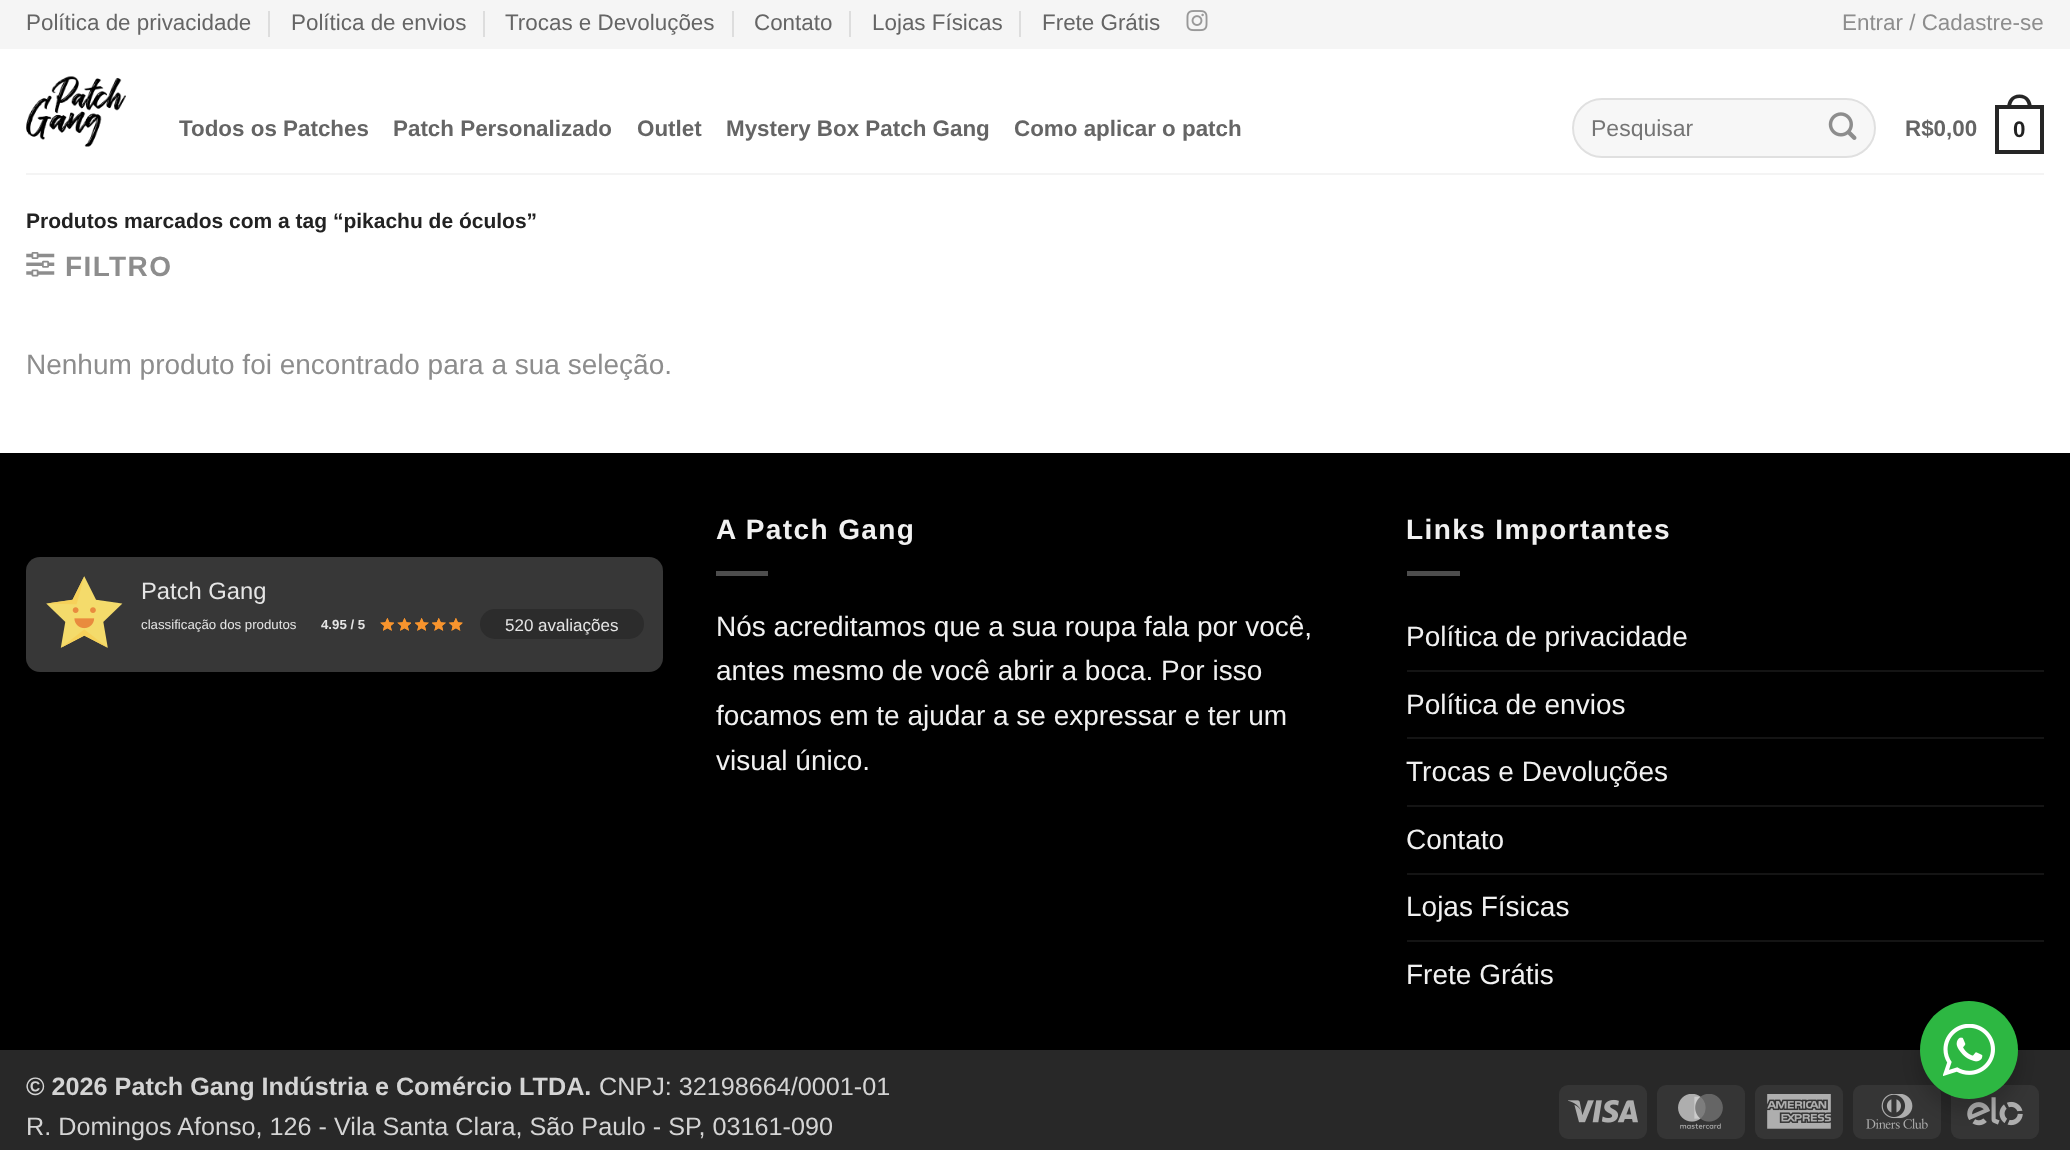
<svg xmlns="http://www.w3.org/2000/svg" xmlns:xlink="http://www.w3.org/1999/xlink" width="2070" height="1150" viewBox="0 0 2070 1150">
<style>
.cls-1{font:22.4px Liberation Sans;fill:#656565}
.cls-2{font:22.4px Liberation Sans;fill:#8d8d8d}
.cls-3{font:bold 22.4px Liberation Sans;fill:#656565}
.cls-4{font:23px Liberation Sans;fill:#757575}
.cls-5{font:bold 22.4px Liberation Sans;fill:#222222}
.cls-6{font:bold 21px Liberation Sans;fill:#222222}
.cls-7{font:bold 28px Liberation Sans;letter-spacing:1.4px;fill:#8d8d8d}
.cls-8{font:28px Liberation Sans;fill:#8d8d8d}
.cls-9{font:23.75px Liberation Sans;fill:#e5e5e5}
.cls-10{font:13.25px Liberation Sans;fill:#e5e5e5}
.cls-11{font:bold 13.25px Liberation Sans;fill:#e5e5e5}
.cls-12{font:17px Liberation Sans;fill:#e5e5e5}
.cls-13{font:bold 28px Liberation Sans;letter-spacing:1.4px;fill:#f1f1f1}
.cls-14{font:28px Liberation Sans;fill:#f1f1f1}
.cls-15{font:bold 25.2px Liberation Sans;fill:#d4d4d4}
.cls-16{font:25.2px Liberation Sans;fill:#d4d4d4}
</style>
<defs>
<clipPath id="clip1"><rect x="1591" y="114" width="259" height="26"/></clipPath>
</defs>
<rect width="100%" height="100%" fill="#ffffff"/>
<rect fill="#f5f5f5" x="0" y="0" width="2070" height="49"/>
<rect fill="#dddddd" x="268" y="11" width="2" height="26"/>
<rect fill="#dddddd" x="483" y="11" width="2" height="26"/>
<rect fill="#dddddd" x="732" y="11" width="2" height="26"/>
<rect fill="#dddddd" x="849" y="11" width="2" height="26"/>
<rect fill="#dddddd" x="1019" y="11" width="2" height="26"/>
<image xlink:href="image0.png" x="1186" y="10" width="22" height="22"/>
<image xlink:href="image1.png" x="26" y="76" width="100" height="71"/>
<rect fill="#f7f7f7" x="1572" y="98" width="304" height="60" rx="30"/>
<rect fill="none" stroke="#000000" stroke-opacity="0.09" stroke-width="2" x="1573" y="99" width="302" height="58" rx="29"/>
<image xlink:href="image2.png" x="1828" y="112" width="29" height="28"/>
<rect fill="none" stroke="#262626" stroke-width="4" x="1997" y="107" width="45" height="45"/>
<path fill="#262626" fill-rule="evenodd" d="M2019.5 94.5C2028 94.5 2032 101 2032 108.5H2007C2007 101 2011 94.5 2019.5 94.5ZM2019.5 98C2026 98 2028 103 2028 108.5H2011C2011 103 2013 98 2019.5 98Z"/>
<rect fill="#f4f4f4" x="26" y="173" width="2018" height="2"/>
<image xlink:href="image3.png" x="26" y="252" width="29" height="25"/>
<rect fill="#000000" x="0" y="453" width="2070" height="597"/>
<rect fill="#373737" x="26" y="557" width="637" height="115" rx="14"/>
<image xlink:href="image4.png" x="46" y="576" width="77" height="72"/>
<image xlink:href="image5.png" x="380" y="618" width="14" height="13"/>
<image xlink:href="image6.png" x="380" y="618" width="14" height="13"/>
<image xlink:href="image7.png" x="397" y="618" width="14" height="13"/>
<image xlink:href="image8.png" x="397" y="618" width="14" height="13"/>
<image xlink:href="image9.png" x="415" y="618" width="14" height="13"/>
<image xlink:href="image10.png" x="415" y="618" width="14" height="13"/>
<image xlink:href="image11.png" x="432" y="618" width="14" height="13"/>
<image xlink:href="image12.png" x="432" y="618" width="14" height="13"/>
<image xlink:href="image13.png" x="448" y="618" width="15" height="13"/>
<image xlink:href="image14.png" x="448" y="618" width="14" height="13"/>
<rect fill="#2c2c2c" x="480" y="609" width="164" height="30" rx="15"/>
<rect fill="#4d4d4d" x="716" y="571" width="52" height="5"/>
<rect fill="#4d4d4d" x="1407" y="571" width="53" height="5"/>
<rect fill="#141414" x="1407" y="670" width="637" height="2"/>
<rect fill="#141414" x="1407" y="737" width="637" height="2"/>
<rect fill="#141414" x="1407" y="805" width="637" height="2"/>
<rect fill="#141414" x="1407" y="873" width="637" height="2"/>
<rect fill="#141414" x="1407" y="940" width="637" height="2"/>
<rect fill="#282828" x="0" y="1050" width="2070" height="100"/>
<rect fill="#353535" x="1559" y="1085" width="88" height="54" rx="9"/>
<image xlink:href="image15.png" x="1568" y="1099" width="70" height="24"/>
<rect fill="#353535" x="1657" y="1085" width="88" height="54" rx="9"/>
<image xlink:href="image16.png" x="1678" y="1094" width="45" height="35"/>
<rect fill="#353535" x="1755" y="1085" width="88" height="54" rx="9"/>
<image xlink:href="image17.png" x="1767" y="1094" width="64" height="35"/>
<rect fill="#353535" x="1853" y="1085" width="88" height="54" rx="9"/>
<image xlink:href="image18.png" x="1866" y="1094" width="62" height="35"/>
<rect fill="#353535" x="1951" y="1085" width="88" height="54" rx="9"/>
<image xlink:href="image19.png" x="1967" y="1097" width="56" height="29"/>
<rect fill="#000000" fill-opacity="0.14" filter="blur(7px)" x="1916" y="1008" width="105" height="105" rx="52.5"/>
<circle fill="#2db742" cx="1969" cy="1050" r="49"/>
<image xlink:href="image20.png" x="1943" y="1024" width="52" height="52"/>
<text class="cls-1" x="26" y="30">Política de privacidade</text>
<text class="cls-1" x="291" y="30">Política de envios</text>
<text class="cls-1" x="505" y="30">Trocas e Devoluções</text>
<text class="cls-1" x="754" y="30">Contato</text>
<text class="cls-1" x="872" y="30">Lojas Físicas</text>
<text class="cls-1" x="1042" y="30">Frete Grátis</text>
<text class="cls-2" x="1842" y="30">Entrar / Cadastre-se</text>
<text class="cls-3" x="179" y="136">Todos os Patches</text>
<text class="cls-3" x="393" y="136">Patch Personalizado</text>
<text class="cls-3" x="637" y="136">Outlet</text>
<text class="cls-3" x="726" y="136">Mystery Box Patch Gang</text>
<text class="cls-3" x="1014" y="136">Como aplicar o patch</text>
<g clip-path="url(#clip1)">
<text class="cls-4" x="1591" y="136">Pesquisar</text>
</g>
<text class="cls-3" x="1905" y="136">R$0,00</text>
<text class="cls-5" x="2013" y="137">0</text>
<text class="cls-6" x="26" y="228">Produtos marcados com a tag “pikachu de óculos”</text>
<text class="cls-7" x="65" y="276">FILTRO</text>
<text class="cls-8" x="26" y="374">Nenhum produto foi encontrado para a sua seleção.</text>
<text class="cls-9" x="141" y="599">Patch Gang</text>
<text class="cls-10" x="141" y="629">classificação dos produtos</text>
<text class="cls-11" x="321" y="629">4.95 / 5</text>
<text class="cls-12" x="505" y="631">520 avaliações</text>
<text class="cls-13" x="716" y="539">A Patch Gang</text>
<text class="cls-14"><tspan x="716" y="636">Nós acreditamos que a sua roupa fala por você,</tspan><tspan x="716" y="680">antes mesmo de você abrir a boca. Por isso</tspan><tspan x="716" y="725">focamos em te ajudar a se expressar e ter um</tspan><tspan x="716" y="770">visual único.</tspan></text>
<text class="cls-13" x="1406" y="539">Links Importantes</text>
<text class="cls-14" x="1406" y="646">Política de privacidade</text>
<text class="cls-14" x="1406" y="714">Política de envios</text>
<text class="cls-14" x="1406" y="781">Trocas e Devoluções</text>
<text class="cls-14" x="1406" y="849">Contato</text>
<text class="cls-14" x="1406" y="916">Lojas Físicas</text>
<text class="cls-14" x="1406" y="984">Frete Grátis</text>
<text class="cls-15" x="26" y="1095">© 2026 Patch Gang Indústria e Comércio LTDA.</text>
<text class="cls-16" x="599" y="1095">CNPJ: 32198664/0001-01</text>
<text class="cls-16" x="26" y="1135">R. Domingos Afonso, 126 - Vila Santa Clara, São Paulo - SP, 03161-090</text>
</svg>
